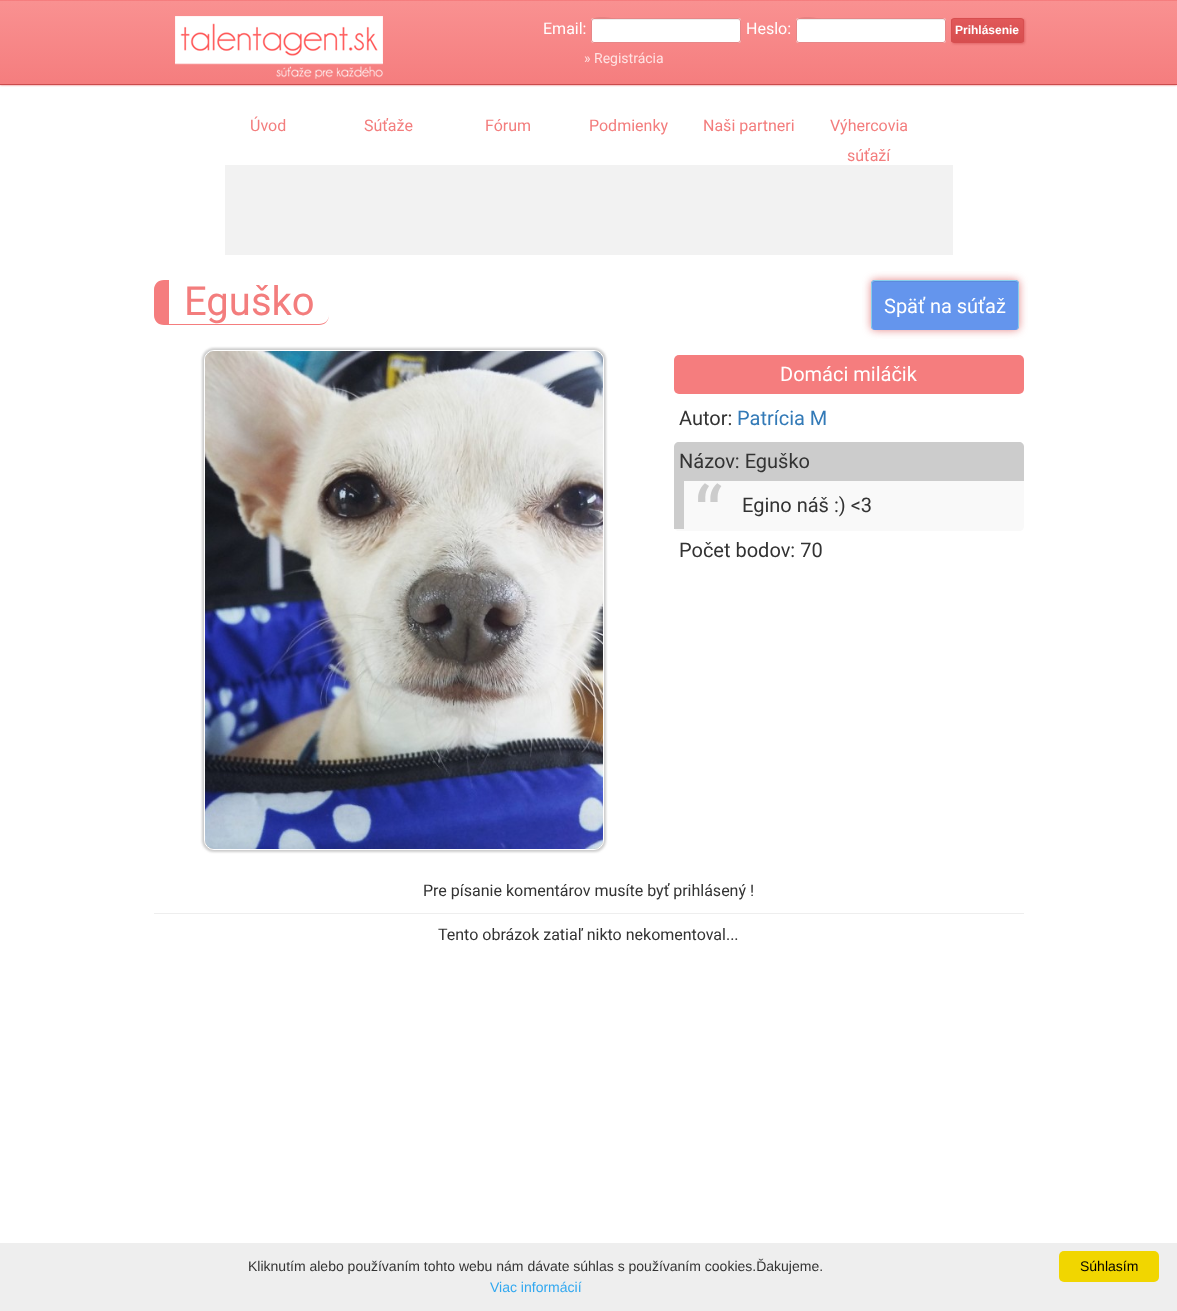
<svg xmlns="http://www.w3.org/2000/svg" xmlns:xlink="http://www.w3.org/1999/xlink" width="1177" height="1311" viewBox="0 0 1177 1311">
<style>
.cls-1{font:16px Roboto;fill:#ffffff}
.cls-2{font:bold 12px Liberation Sans;fill:#ffffff}
.cls-3{font:14px Roboto;fill:#ffe3e3}
.cls-4{font:16px Roboto;fill:#f37d7d}
.cls-5{font:40px Roboto;fill:#f37d7d}
.cls-6{font:20px Roboto;fill:#ffffff}
.cls-7{font:20px Roboto;fill:#333333}
.cls-8{font:20px Roboto;fill:#337ab7}
.cls-9{font:80px Roboto;fill:#cccccc}
.cls-10{font:16px Roboto;fill:#333333}
.cls-11{font:14px Liberation Sans;fill:#333333}
.cls-12{font:14px Liberation Sans;fill:#31a8f0}
.cls-13{font:14px Liberation Sans;fill:#000000}
</style>
<defs>
<linearGradient id="g1" gradientUnits="userSpaceOnUse" x1="589" y1="-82" x2="589" y2="1"><stop offset="0" stop-color="#f99191"/><stop offset="1" stop-color="#f57d7e"/></linearGradient>
<linearGradient id="g2" gradientUnits="userSpaceOnUse" x1="589" y1="1" x2="589" y2="84"><stop offset="0" stop-color="#f99191"/><stop offset="1" stop-color="#f57d7e"/></linearGradient>
<clipPath id="clip1"><rect x="951" y="18" width="73" height="25" rx="3"/></clipPath>
<linearGradient id="g3" gradientUnits="userSpaceOnUse" x1="988" y1="19" x2="988" y2="42"><stop offset="0" stop-color="#e15859"/><stop offset="1" stop-color="#d74e4f"/></linearGradient>
</defs>
<rect width="100%" height="100%" fill="#ffffff"/>
<rect fill="#e16567" filter="blur(1px)" x="0" y="0" width="1177" height="85"/>
<rect fill="url(#g1)" x="0" y="0" width="1177" height="1"/>
<rect fill="url(#g2)" x="0" y="1" width="1177" height="83"/>
<rect fill="#cb4b4c" x="0" y="84" width="1177" height="1"/>
<image xlink:href="image0.png" x="175" y="16" width="208" height="63"/>
<rect fill="#ffffff" x="591" y="18" width="150" height="25" rx="3"/>
<path fill="#000000" fill-opacity="0.07" d="M594 20H738C739 20 740 21 740 22C740 21 740 20 739 19H618C615 19 592 13 592 22C592 21 593 20 594 20Z"/>
<rect fill="none" stroke="#e0696a" stroke-opacity="0.8" x="591.5" y="18.5" width="149" height="24" rx="2.5"/>
<rect fill="#ffffff" x="796" y="18" width="150" height="25" rx="3"/>
<path fill="#000000" fill-opacity="0.07" d="M799 20H943C944 20 945 21 945 22C945 21 945 20 944 19H823C820 19 797 13 797 22C797 21 798 20 799 20Z"/>
<rect fill="none" stroke="#e0696a" stroke-opacity="0.8" x="796.5" y="18.5" width="149" height="24" rx="2.5"/>
<rect fill="#e16567" filter="blur(1px)" x="952" y="19" width="73" height="25" rx="3"/>
<g clip-path="url(#clip1)">
<rect fill="url(#g3)" x="951" y="19" width="73" height="23"/>
</g>
<rect fill="none" stroke="#d74e4f" x="951.5" y="18.5" width="72" height="24" rx="2.5"/>
<rect fill="#f2f2f2" x="225" y="165" width="728" height="90"/>
<path fill="#f57d7e" fill-rule="evenodd" d="M164 280H319C325 280 329 284 329 290V315C329 321 325 325 319 325H164C158 325 154 321 154 315V290C154 284 158 280 164 280ZM169 280H319C325 280 329 284 329 290V315C329 320 325 324 319 324H169Z"/>
<rect fill="#e0696a" fill-opacity="0.8" filter="blur(4px)" x="871" y="280" width="148" height="50" rx="4"/>
<rect fill="#6495ed" x="871" y="280" width="148" height="50" rx="4"/>
<path fill="#5d8adb" d="M875 282H1015C1017 282 1018 283 1018 285V284C1018 282 1017 281 1015 281H875C873 281 872 282 872 284V285C872 283 873 282 875 282Z"/>
<path fill="#87ceeb" fill-rule="evenodd" d="M875 280H1015C1017 280 1019 282 1019 284V326C1019 328 1017 330 1015 330H875C873 330 871 328 871 326V284C871 282 873 280 875 280ZM875 281H1015C1017 281 1018 282 1018 284V326C1018 328 1017 330 1015 330H875C873 330 872 328 872 326V284C872 282 873 281 875 281Z"/>
<rect fill="#cccccc" filter="blur(1px)" x="202" y="348" width="404" height="504" rx="12"/>
<rect fill="none" stroke="#ffffff" x="204.5" y="350.5" width="399" height="499" rx="9.5"/>
<image xlink:href="image1.png" x="205" y="351" width="398" height="498"/>
<rect fill="#f57d7e" x="674" y="355" width="350" height="39" rx="5"/>
<path fill="#cccccc" d="M679 442H1019C1022 442 1024 444 1024 447V481H674V447C674 444 676 442 679 442Z"/>
<path fill="#f9f9f9" d="M674 481H1024V526C1024 529 1022 531 1019 531H679C676 531 674 529 674 526Z"/>
<rect fill="#cccccc" x="674" y="481" width="10" height="48"/>
<rect fill="#eeeeee" x="154" y="913" width="870" height="1"/>
<rect fill="#eeeeee" x="0" y="1243" width="1177" height="68"/>
<rect fill="#f1d600" x="1059" y="1251" width="100" height="31" rx="5"/>
<text class="cls-1" x="543" y="34">Email:</text>
<text class="cls-1" x="746" y="34">Heslo:</text>
<text class="cls-2" x="955" y="34">Prihlásenie</text>
<text class="cls-3" x="584" y="63">» Registrácia</text>
<text class="cls-4" x="250" y="131">Úvod</text>
<text class="cls-4" x="364" y="131">Súťaže</text>
<text class="cls-4" x="485" y="131">Fórum</text>
<text class="cls-4" x="589" y="131">Podmienky</text>
<text class="cls-4" x="703" y="131">Naši partneri</text>
<text class="cls-4" x="830" y="131">Výhercovia</text>
<text class="cls-4" x="847" y="161">súťaží</text>
<text class="cls-5" x="184" y="315">Eguško</text>
<text class="cls-6" x="884" y="313">Späť na súťaž</text>
<text class="cls-6" x="780" y="381">Domáci miláčik</text>
<text class="cls-7" x="679" y="425">Autor:</text>
<text class="cls-8" x="737" y="425">Patrícia M</text>
<text class="cls-7" x="679" y="468">Názov: Eguško</text>
<text class="cls-9" x="694" y="544">“</text>
<text class="cls-7" x="742" y="512">Egino náš :) &lt;3</text>
<text class="cls-7" x="679" y="557">Počet bodov: 70</text>
<text class="cls-10" x="423" y="896">Pre písanie komentárov musíte byť prihlásený !</text>
<text class="cls-10" x="438" y="940">Tento obrázok zatiaľ nikto nekomentoval...</text>
<text class="cls-11" x="248" y="1271">Kliknutím alebo používaním tohto webu nám dávate súhlas s používaním cookies.Ďakujeme.</text>
<text class="cls-12" x="490" y="1292">Viac informácií</text>
<text class="cls-13" x="1080" y="1271">Súhlasím</text>
</svg>
